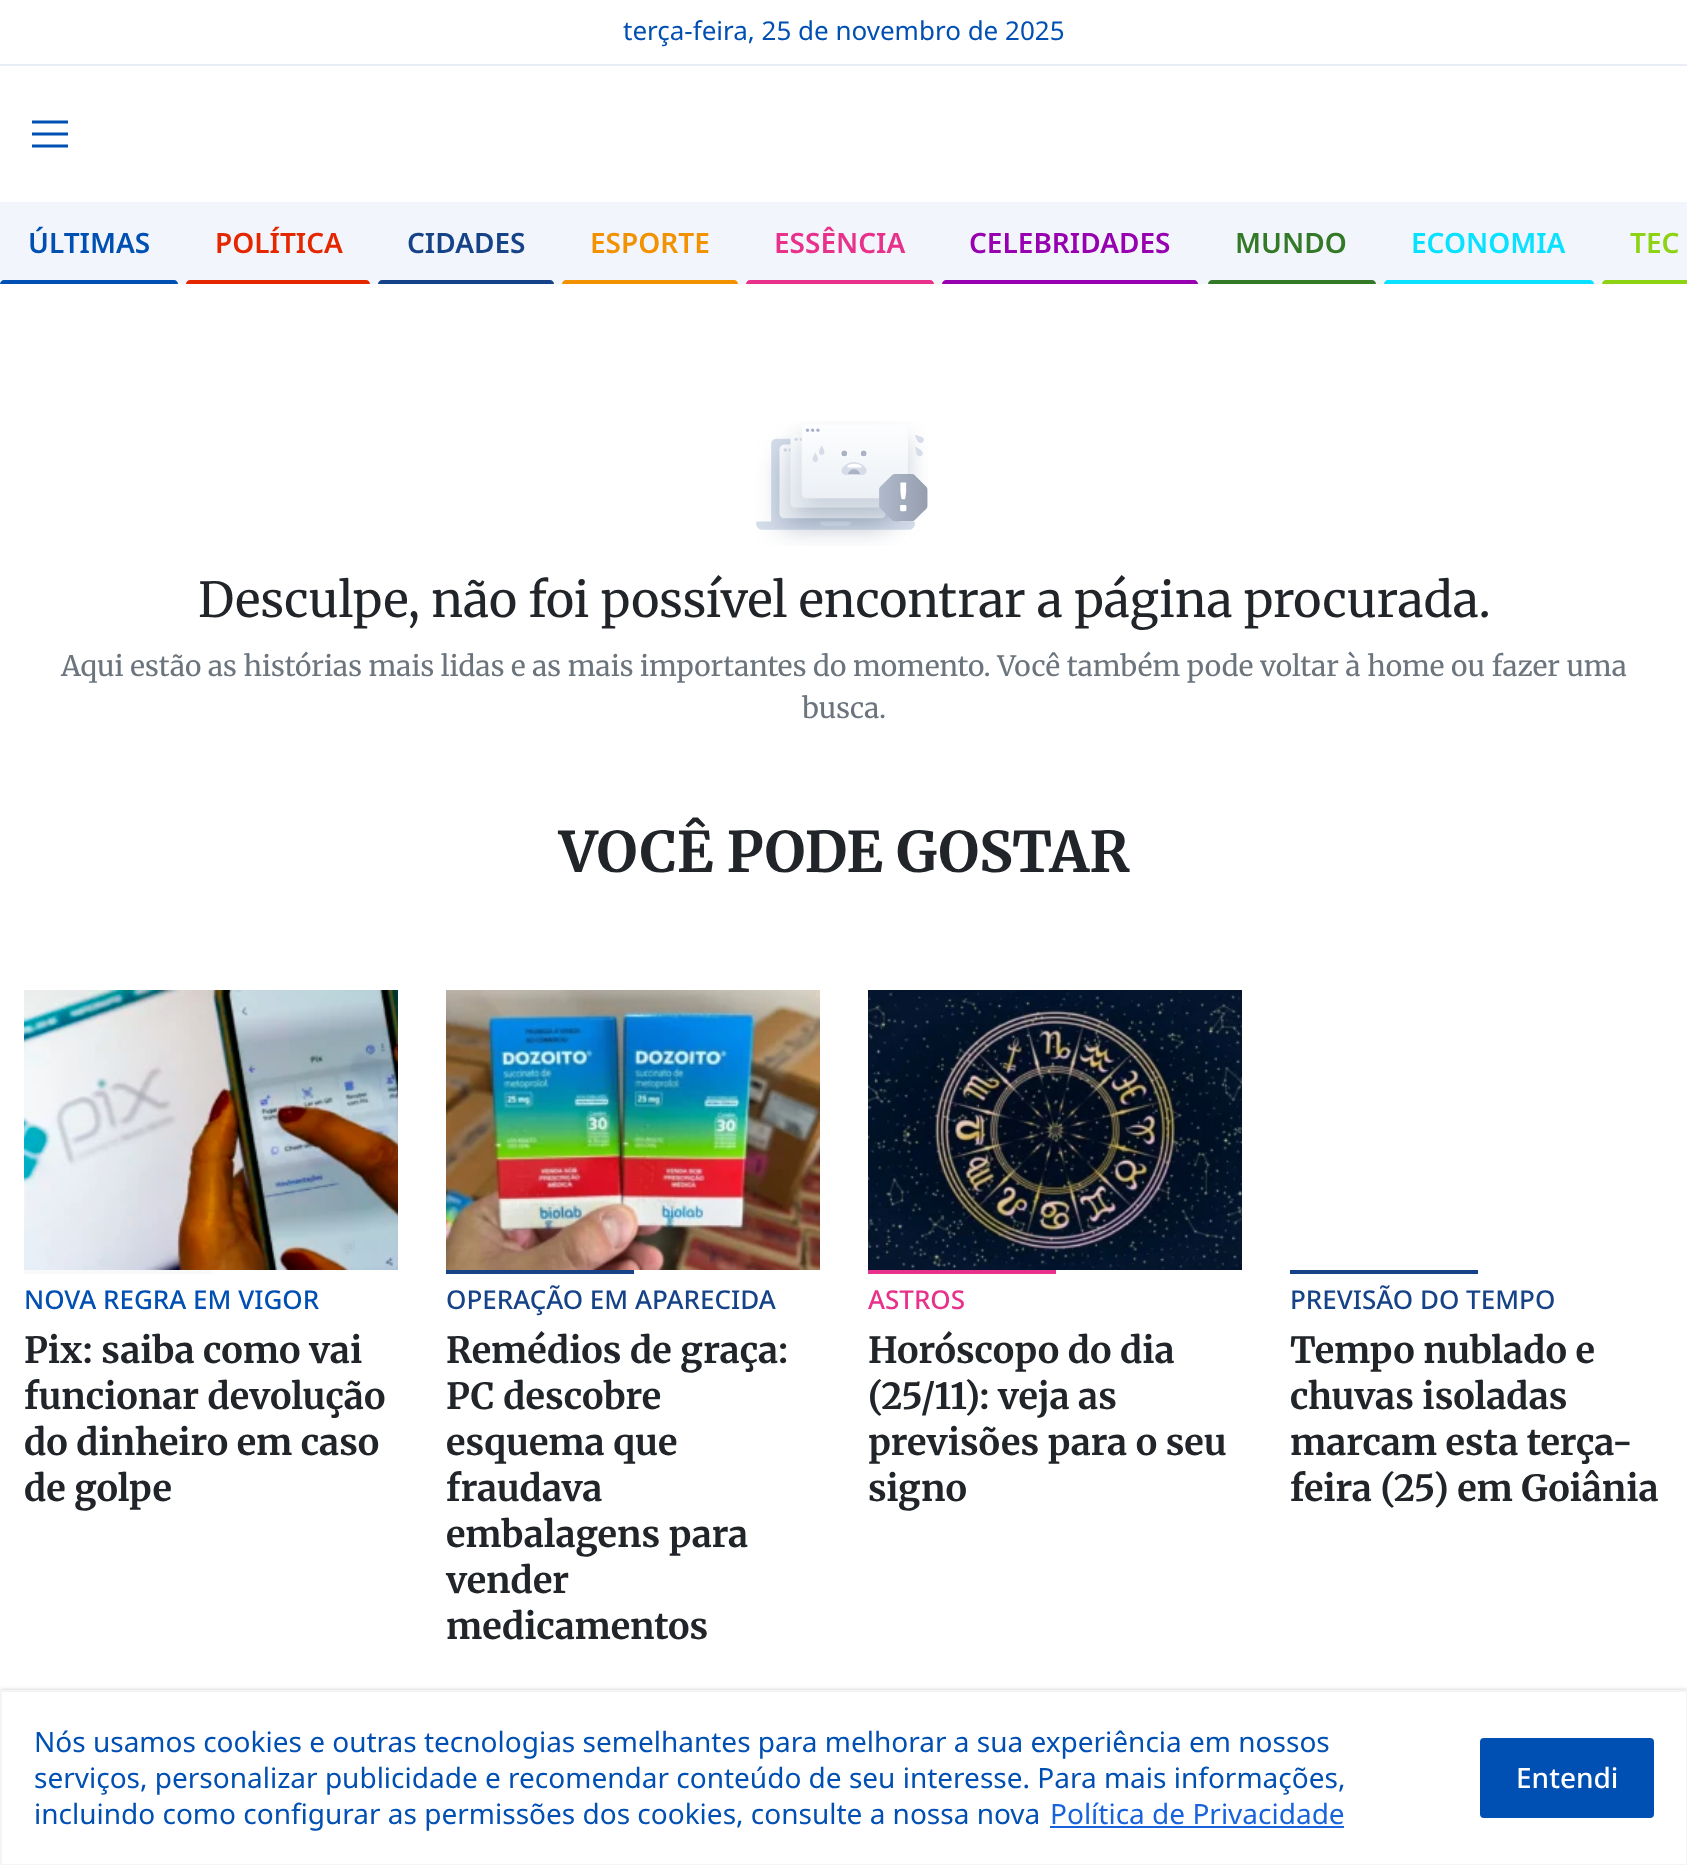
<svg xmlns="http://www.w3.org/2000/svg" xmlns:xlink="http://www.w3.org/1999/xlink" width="1687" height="1865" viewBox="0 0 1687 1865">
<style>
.cls-1{font:26px Noto Sans;fill:#004fb3}
.cls-2{font:600 28px Noto Sans;fill:#004fb3}
.cls-3{font:600 28px Noto Sans;fill:#e52700}
.cls-4{font:600 28px Noto Sans;fill:#164388}
.cls-5{font:600 28px Noto Sans;fill:#f39200}
.cls-6{font:600 28px Noto Sans;fill:#e8318a}
.cls-7{font:600 28px Noto Sans;fill:#9700b0}
.cls-8{font:600 28px Noto Sans;fill:#347928}
.cls-9{font:600 28px Noto Sans;fill:#08e1ff}
.cls-10{font:600 28px Noto Sans;fill:#8dd213}
.cls-11{font:48px Merriweather;fill:#212529}
.cls-12{font:28px Merriweather;fill:#6c757d}
.cls-13{font:bold 56px Merriweather;fill:#212529}
.cls-14{font:500 26px Noto Sans;fill:#004fb3}
.cls-15{font:bold 36px Merriweather;fill:#212529}
.cls-16{font:500 26px Noto Sans;fill:#164388}
.cls-17{font:500 26px Noto Sans;fill:#e8318a}
.cls-18{font:28px Noto Sans;fill:#004fb3}
.cls-19{font:28px Noto Sans;fill:#1863dc}
.cls-20{font:500 28px Noto Sans;fill:#ffffff}
</style>
<rect width="100%" height="100%" fill="#ffffff"/>
<rect fill="#e9edf6" x="0" y="64" width="1687" height="2"/>
<path fill="#004fb3" d="M32 120.5V123.5H68V120.5ZM32 132.5V135.5H68V132.5ZM32 144.5V147.5H68V144.5Z"/>
<rect fill="#f2f5fb" x="0" y="202" width="1687" height="82"/>
<path fill="#004fb3" d="M4 280H174C176 280 178 282 178 284H0C0 282 2 280 4 280Z"/>
<path fill="#e52700" d="M190 280H366C368 280 370 282 370 284H186C186 282 188 280 190 280Z"/>
<path fill="#164388" d="M382 280H550C552 280 554 282 554 284H378C378 282 380 280 382 280Z"/>
<path fill="#f39200" d="M566 280H734C736 280 738 282 738 284H562C562 282 564 280 566 280Z"/>
<path fill="#e8318a" d="M750 280H930C932 280 934 282 934 284H746C746 282 748 280 750 280Z"/>
<path fill="#9700b0" d="M946 280H1194C1196 280 1198 282 1198 284H942C942 282 944 280 946 280Z"/>
<path fill="#347928" d="M1212 280H1372C1374 280 1376 282 1376 284H1208C1208 282 1210 280 1212 280Z"/>
<path fill="#08e1ff" d="M1388 280H1590C1592 280 1594 282 1594 284H1384C1384 282 1386 280 1388 280Z"/>
<path fill="#8dd213" d="M1606 280H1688V284H1602C1602 282 1604 280 1606 280Z"/>
<image xlink:href="image0.png" x="756" y="421" width="172" height="125"/>
<image xlink:href="image1.png" x="24" y="990" width="374" height="280"/>
<rect fill="#f8f9fa" x="24" y="1270" width="188" height="4"/>
<image xlink:href="image2.png" x="446" y="990" width="374" height="280"/>
<rect fill="#164388" x="446" y="1270" width="188" height="4"/>
<image xlink:href="image3.png" x="868" y="990" width="374" height="280"/>
<rect fill="#e8318a" x="868" y="1270" width="188" height="4"/>
<rect fill="#164388" x="1290" y="1270" width="188" height="4"/>
<rect fill="#000000" fill-opacity="0.2" filter="blur(2px)" x="0" y="1690" width="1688" height="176"/>
<rect fill="#ffffff" stroke="#f4f4f4" stroke-width="2" x="1" y="1691" width="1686" height="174"/>
<rect fill="#1863dc" x="1050" y="1826" width="294" height="2"/>
<rect fill="#004fb3" stroke="#004fb3" stroke-width="4" x="1482" y="1740" width="170" height="76" rx="2"/>
<text class="cls-1" x="623" y="40">terça-feira, 25 de novembro de 2025</text>
<text class="cls-2" x="28" y="253">ÚLTIMAS</text>
<text class="cls-3" x="215" y="253">POLÍTICA</text>
<text class="cls-4" x="407" y="253">CIDADES</text>
<text class="cls-5" x="590" y="253">ESPORTE</text>
<text class="cls-6" x="774" y="253">ESSÊNCIA</text>
<text class="cls-7" x="969" y="253">CELEBRIDADES</text>
<text class="cls-8" x="1235" y="253">MUNDO</text>
<text class="cls-9" x="1411" y="253">ECONOMIA</text>
<text class="cls-10" x="1630" y="253">TEC</text>
<text class="cls-11" x="198" y="617">Desculpe, não foi possível encontrar a página procurada.</text>
<text class="cls-12" x="61" y="676">Aqui estão as histórias mais lidas e as mais importantes do momento. Você também pode voltar à home ou fazer uma</text>
<text class="cls-12" x="802" y="718">busca.</text>
<text class="cls-13" x="559" y="872">VOCÊ PODE GOSTAR</text>
<text class="cls-14" x="24" y="1309">NOVA REGRA EM VIGOR</text>
<text class="cls-15"><tspan x="24" y="1363">Pix: saiba como vai</tspan><tspan x="24" y="1409">funcionar devolução</tspan><tspan x="24" y="1455">do dinheiro em caso</tspan><tspan x="24" y="1501">de golpe</tspan></text>
<text class="cls-16" x="446" y="1309">OPERAÇÃO EM APARECIDA</text>
<text class="cls-15"><tspan x="446" y="1363">Remédios de graça:</tspan><tspan x="446" y="1409">PC descobre</tspan><tspan x="446" y="1455">esquema que</tspan><tspan x="446" y="1501">fraudava</tspan><tspan x="446" y="1547">embalagens para</tspan><tspan x="446" y="1593">vender</tspan><tspan x="446" y="1639">medicamentos</tspan></text>
<text class="cls-17" x="868" y="1309">ASTROS</text>
<text class="cls-15"><tspan x="868" y="1363">Horóscopo do dia</tspan><tspan x="868" y="1409">(25/11): veja as</tspan><tspan x="868" y="1455">previsões para o seu</tspan><tspan x="868" y="1501">signo</tspan></text>
<text class="cls-16" x="1290" y="1309">PREVISÃO DO TEMPO</text>
<text class="cls-15"><tspan x="1290" y="1363">Tempo nublado e</tspan><tspan x="1290" y="1409">chuvas isoladas</tspan><tspan x="1290" y="1455">marcam esta terça-</tspan><tspan x="1290" y="1501">feira (25) em Goiânia</tspan></text>
<text class="cls-18"><tspan x="34" y="1752">Nós usamos cookies e outras tecnologias semelhantes para melhorar a sua experiência em nossos</tspan><tspan x="34" y="1788">serviços, personalizar publicidade e recomendar conteúdo de seu interesse. Para mais informações,</tspan><tspan x="34" y="1824">incluindo como configurar as permissões dos cookies, consulte a nossa nova</tspan></text>
<text class="cls-19" x="1050" y="1824">Política de Privacidade</text>
<text class="cls-20" x="1516" y="1788">Entendi</text>
</svg>
